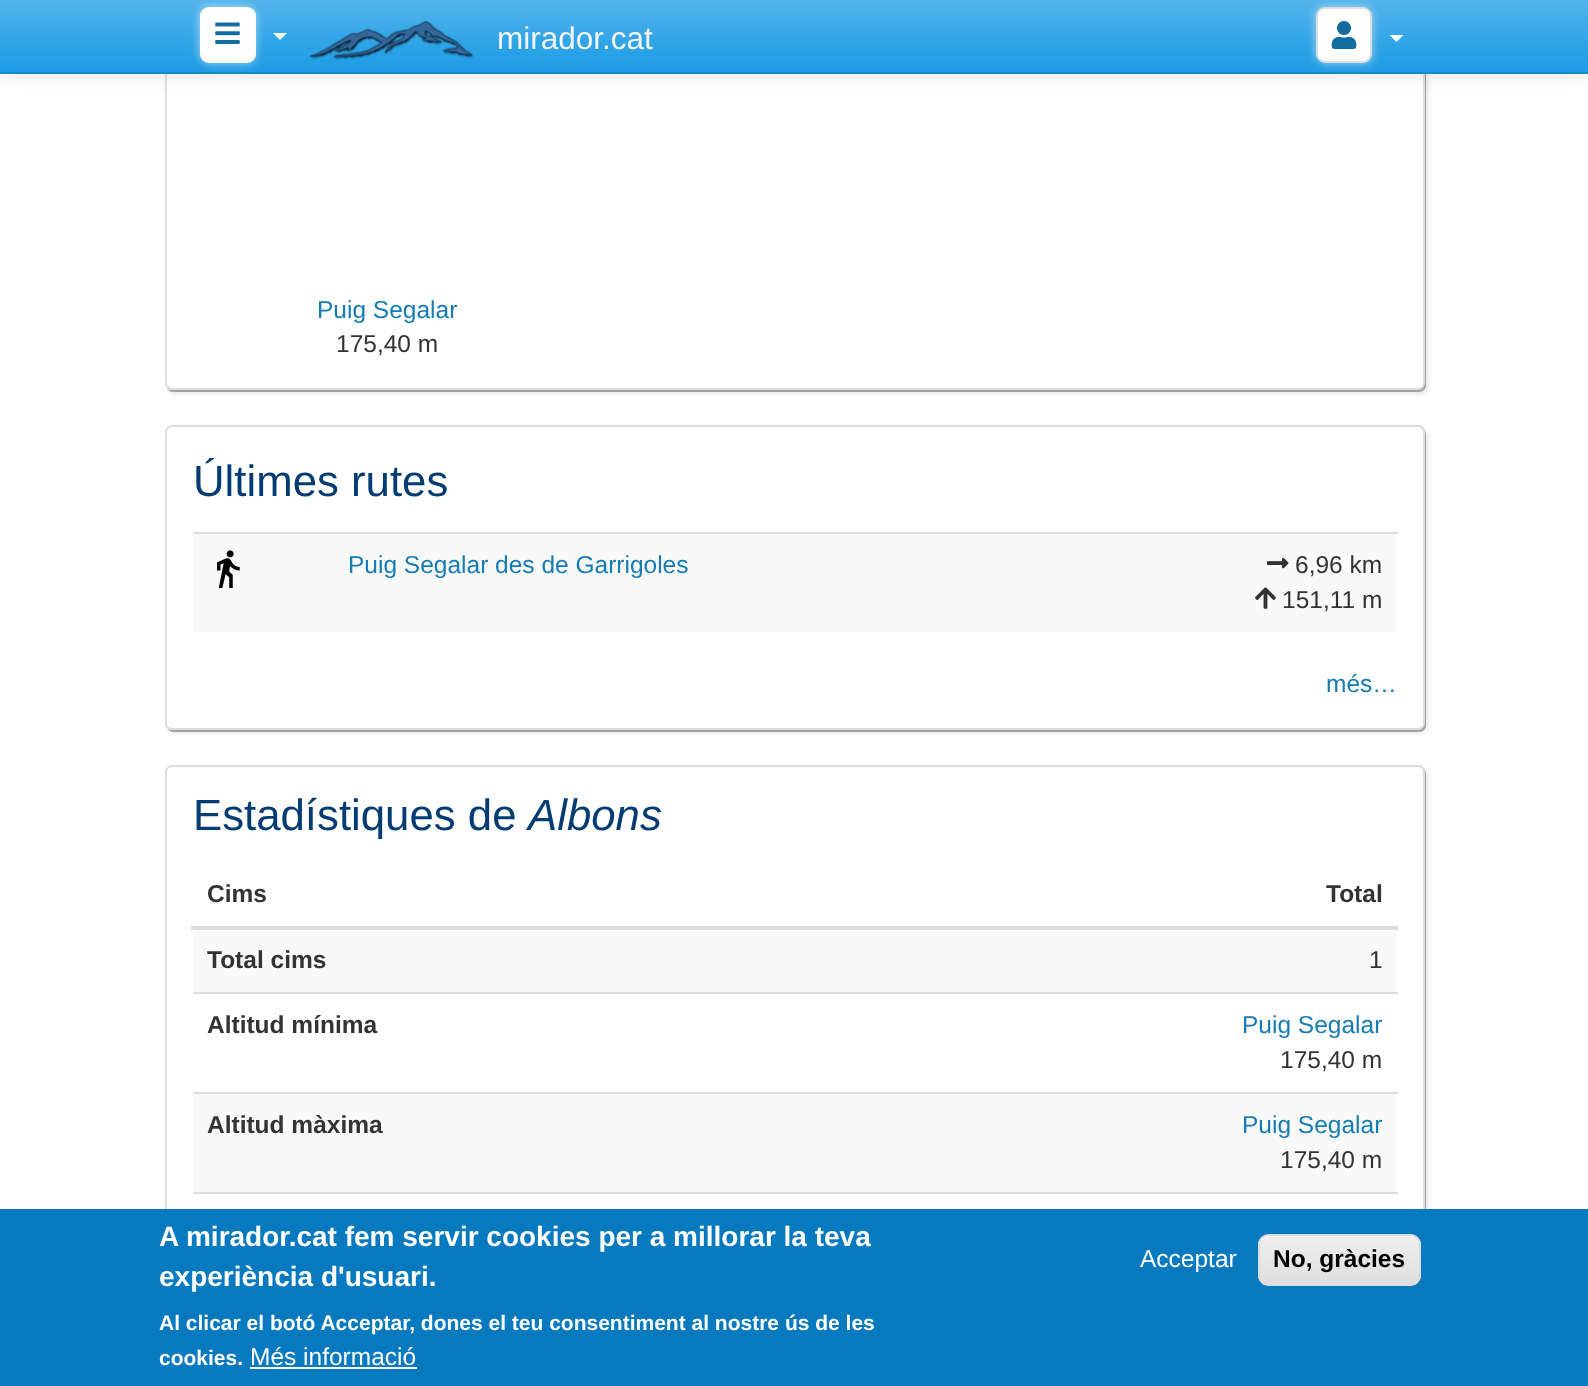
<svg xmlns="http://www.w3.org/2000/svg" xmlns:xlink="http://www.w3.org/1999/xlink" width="1588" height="1386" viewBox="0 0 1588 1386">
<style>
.cls-1{font:31.5px Liberation Sans;fill:#f4f4f4}
.cls-2{font:24.5px Liberation Sans;fill:#157cb6}
.cls-3{font:24.5px Liberation Sans;fill:#333333}
.cls-4{font:43.75px Liberation Sans;fill:#033c73}
.cls-5{font:italic 43.75px Liberation Sans;fill:#033c73}
.cls-6{font:bold 24.5px Liberation Sans;fill:#333333}
.cls-7{font:bold 28px Liberation Sans;fill:#ffffff}
.cls-8{font:bold 21px Liberation Sans;fill:#ffffff}
.cls-9{font:24.5px Liberation Sans;fill:#ffffff}
.cls-10{font:bold 24.5px Liberation Sans;fill:#000000}
</style>
<defs>
<linearGradient id="g1" gradientUnits="userSpaceOnUse" x1="795" y1="0" x2="795" y2="72"><stop offset="0" stop-color="#54b4eb"/><stop offset="0.6" stop-color="#2fa4e7"/><stop offset="1" stop-color="#1d9ce5"/></linearGradient>
<clipPath id="clip1"><rect x="1258" y="1234" width="163" height="52" rx="11"/></clipPath>
<linearGradient id="g2" gradientUnits="userSpaceOnUse" x1="1340" y1="1236" x2="1340" y2="1285"><stop offset="0.05" stop-color="#ededed"/><stop offset="1" stop-color="#dfdfdf"/></linearGradient>
</defs>
<rect width="100%" height="100%" fill="#ffffff"/>
<rect fill="#000000" fill-opacity="0.1" filter="blur(2.5px)" x="168" y="-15" width="1260" height="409" rx="7"/>
<path fill="#000000" fill-opacity="0.3" d="M167 389C168 391 170 392 173 392H1419C1423 392 1426 389 1426 385V-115C1426-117 1425-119 1424-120V-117V383C1424 387 1421 390 1418 390H172C170 390 168 390 167 389Z"/>
<rect fill="#ffffff" stroke="#dddddd" stroke-width="2" x="166" y="-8" width="1258" height="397" rx="6"/>
<rect fill="#000000" fill-opacity="0.1" filter="blur(9px)" x="0" y="2" width="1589" height="73"/>
<rect fill="url(#g1)" x="0" y="0" width="1588" height="72"/>
<rect fill="#178acc" x="0" y="72" width="1588" height="2"/>
<rect fill="#ffffff" fill-opacity="0.3" filter="blur(4.5px)" x="198" y="5" width="56" height="56" rx="9"/>
<rect fill="#ffffff" fill-opacity="0.3" filter="blur(4.5px)" x="201" y="9" width="56" height="56" rx="9"/>
<rect fill="#ffffff" x="200" y="7" width="56" height="56" rx="9"/>
<image xlink:href="image0.png" x="215" y="22" width="25" height="22"/>
<path fill="#ffffff" d="M273 33H287L280 40Z"/>
<image xlink:href="image1.png" x="309" y="20" width="165" height="40"/>
<rect fill="#ffffff" fill-opacity="0.3" filter="blur(4.5px)" x="1314" y="5" width="56" height="56" rx="9"/>
<rect fill="#ffffff" fill-opacity="0.3" filter="blur(4.5px)" x="1318" y="9" width="56" height="56" rx="9"/>
<rect fill="#ffffff" stroke="#dddddd" stroke-width="2" x="1317" y="8" width="54" height="54" rx="8"/>
<image xlink:href="image2.png" x="1331" y="21" width="26" height="28"/>
<path fill="#ffffff" d="M1389.5 35H1403.5L1396.5 42Z"/>
<rect fill="#000000" fill-opacity="0.1" filter="blur(2.5px)" x="168" y="429" width="1260" height="304" rx="7"/>
<path fill="#000000" fill-opacity="0.3" d="M167 728C168 730 170 732 173 732H1419C1423 732 1426 729 1426 725V434C1426 432 1425 430 1423 429C1424 430 1424 431 1424 432V723C1424 727 1421 730 1418 730H172C170 730 168 729 167 728Z"/>
<rect fill="#ffffff" stroke="#dddddd" stroke-width="2" x="166" y="426" width="1258" height="303" rx="6"/>
<rect fill="#f9f9f9" x="193" y="534" width="1204" height="98"/>
<image xlink:href="image3.png" x="217" y="550" width="23" height="38"/>
<rect fill="#dddddd" x="193" y="532" width="1205" height="2"/>
<image xlink:href="image4.png" x="1267" y="557" width="22" height="12"/>
<image xlink:href="image5.png" x="1255" y="587" width="21" height="22"/>
<rect fill="#000000" fill-opacity="0.1" filter="blur(2.5px)" x="168" y="768" width="1260" height="585" rx="7"/>
<path fill="#000000" fill-opacity="0.3" d="M167 1348C168 1350 170 1351 173 1351H1419C1423 1351 1426 1348 1426 1344V774C1426 772 1425 770 1424 769V772V1342C1424 1346 1421 1349 1418 1349H172C170 1349 168 1349 167 1348Z"/>
<rect fill="#ffffff" stroke="#dddddd" stroke-width="2" x="166" y="766" width="1258" height="582" rx="6"/>
<rect fill="#dddddd" x="191" y="926" width="1207" height="4"/>
<rect fill="#f9f9f9" x="193" y="930" width="1204" height="62"/>
<rect fill="#dddddd" x="193" y="992" width="1205" height="2"/>
<rect fill="#f9f9f9" x="193" y="1094" width="1204" height="98"/>
<rect fill="#dddddd" x="193" y="1092" width="1205" height="2"/>
<rect fill="#dddddd" x="193" y="1192" width="1205" height="2"/>
<rect fill="#0779bf" x="0" y="1209" width="1588" height="177"/>
<rect fill="#ffffff" x="250" y="1367" width="167" height="2"/>
<g clip-path="url(#clip1)">
<rect fill="url(#g2)" x="1258" y="1236" width="163" height="49"/>
</g>
<path fill="#ffffff" d="M1269 1237H1410C1415 1237 1419 1241 1419 1246C1419 1230 1395 1236 1386 1236H1292C1284 1236 1260 1230 1260 1246C1260 1241 1264 1237 1269 1237Z"/>
<rect fill="none" stroke="#dcdcdc" stroke-width="2" x="1259" y="1235" width="161" height="50" rx="10"/>
<text class="cls-1" x="497" y="49">mirador.cat</text>
<text class="cls-2" x="317" y="318">Puig Segalar</text>
<text class="cls-3" x="336" y="352">175,40 m</text>
<text class="cls-4" x="193" y="496">Últimes rutes</text>
<text class="cls-2" x="348" y="573">Puig Segalar des de Garrigoles</text>
<text class="cls-3" x="1295" y="573">6,96 km</text>
<text class="cls-3" x="1282" y="608">151,11 m</text>
<text class="cls-2" x="1326" y="692">més…</text>
<text class="cls-4" x="193" y="830">Estadístiques de</text>
<text class="cls-5" x="528" y="830">Albons</text>
<text class="cls-6" x="207" y="902">Cims</text>
<text class="cls-6" x="1326" y="902">Total</text>
<text class="cls-6" x="207" y="968">Total cims</text>
<text class="cls-3" x="1369" y="968">1</text>
<text class="cls-6" x="207" y="1033">Altitud mínima</text>
<text class="cls-2" x="1242" y="1033">Puig Segalar</text>
<text class="cls-3" x="1280" y="1068">175,40 m</text>
<text class="cls-6" x="207" y="1133">Altitud màxima</text>
<text class="cls-2" x="1242" y="1133">Puig Segalar</text>
<text class="cls-3" x="1280" y="1168">175,40 m</text>
<text class="cls-7"><tspan x="159" y="1246">A mirador.cat fem servir cookies per a millorar la teva</tspan><tspan x="159" y="1286">experiència d'usuari.</tspan></text>
<text class="cls-8"><tspan x="159" y="1330">Al clicar el botó Acceptar, dones el teu consentiment al nostre ús de les</tspan><tspan x="159" y="1365">cookies.</tspan></text>
<text class="cls-9" x="250" y="1365">Més informació</text>
<text class="cls-9" x="1140" y="1267">Acceptar</text>
<text class="cls-10" x="1273" y="1267">No, gràcies</text>
</svg>
